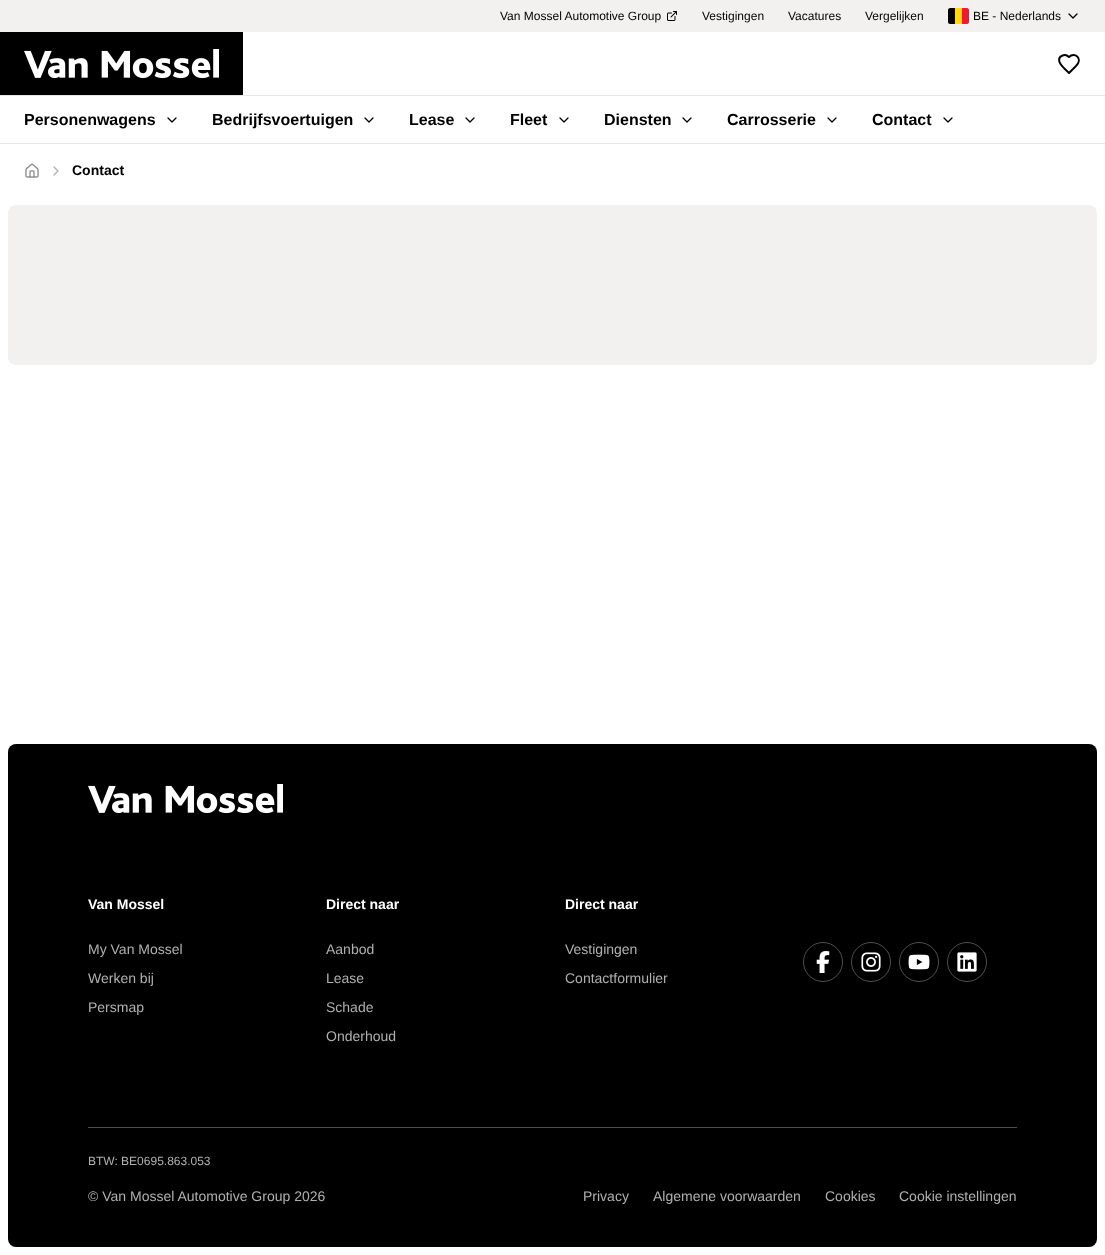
<svg xmlns="http://www.w3.org/2000/svg" xmlns:xlink="http://www.w3.org/1999/xlink" width="1105" height="1255" viewBox="0 0 1105 1255">
<style>
.cls-1{font:12px Liberation Sans;fill:#000000}
.cls-2{font:bold 16px Liberation Sans;fill:#000000}
.cls-3{font:bold 14px Liberation Sans;fill:#000000}
.cls-4{font:bold 14px Liberation Sans;fill:#ffffff}
.cls-5{font:14px Liberation Sans;fill:#b0b0b0}
.cls-6{font:12px Liberation Sans;fill:#b0b0b0}
</style>
<rect width="100%" height="100%" fill="#ffffff"/>
<rect fill="#f2f1ef" x="0" y="0" width="1105" height="32"/>
<image xlink:href="image0.png" x="667" y="11" width="10" height="10"/>
<path fill="#000001" d="M950 8H955V24H950C949 24 948 23 948 22V10C948 9 949 8 950 8Z"/>
<rect fill="#ffd90c" x="955" y="8" width="7" height="16"/>
<path fill="#f31830" d="M962 8H967C968 8 969 9 969 10V22C969 23 968 24 967 24H962Z"/>
<path fill="none" stroke="#000000" stroke-width="1.3" stroke-linecap="round" stroke-linejoin="round" d="M1069 14L1073 18L1077 14"/>
<rect fill="#000000" x="0" y="32" width="243" height="63"/>
<image xlink:href="image1.png" x="24" y="49" width="195" height="30"/>
<path fill="none" stroke="#000000" stroke-width="2" stroke-linecap="round" stroke-linejoin="round" d="M1076 66C1083.5 58.5 1074.5 51.5 1069 57C1065 53 1057.5 56 1059.5 62C1060.5 65.5 1066.5 70.5 1069 73Z"/>
<rect fill="#e7e7e7" x="0" y="95" width="1105" height="1"/>
<rect fill="#e7e7e7" x="0" y="143" width="1105" height="1"/>
<path fill="none" stroke="#000000" stroke-width="1.3" stroke-linecap="round" stroke-linejoin="round" d="M168 118L172 122L176 118"/>
<path fill="none" stroke="#000000" stroke-width="1.3" stroke-linecap="round" stroke-linejoin="round" d="M365 118L369 122L373 118"/>
<path fill="none" stroke="#000000" stroke-width="1.3" stroke-linecap="round" stroke-linejoin="round" d="M466 118L470 122L474 118"/>
<path fill="none" stroke="#000000" stroke-width="1.3" stroke-linecap="round" stroke-linejoin="round" d="M560 118L564 122L568 118"/>
<path fill="none" stroke="#000000" stroke-width="1.3" stroke-linecap="round" stroke-linejoin="round" d="M683 118L687 122L691 118"/>
<path fill="none" stroke="#000000" stroke-width="1.3" stroke-linecap="round" stroke-linejoin="round" d="M828 118L832 122L836 118"/>
<path fill="none" stroke="#000000" stroke-width="1.3" stroke-linecap="round" stroke-linejoin="round" d="M944 118L948 122L952 118"/>
<image xlink:href="image2.png" x="25" y="163" width="14" height="15"/>
<path fill="none" stroke="#b0b0b0" stroke-width="1.3" stroke-linecap="round" stroke-linejoin="round" d="M54 175L58 171L54 167"/>
<rect fill="#f2f1ef" x="8" y="205" width="1089" height="160" rx="8"/>
<rect fill="#000000" x="8" y="744" width="1089" height="503" rx="8"/>
<image xlink:href="image1.png" x="88" y="784" width="195" height="30"/>
<circle fill="none" stroke="#4f4f4f" cx="823" cy="962" r="19.5"/>
<image xlink:href="image3.png" x="816" y="951" width="14" height="22"/>
<circle fill="none" stroke="#4f4f4f" cx="871" cy="962" r="19.5"/>
<image xlink:href="image4.png" x="861" y="952" width="20" height="20"/>
<circle fill="none" stroke="#4f4f4f" cx="919" cy="962" r="19.5"/>
<image xlink:href="image5.png" x="908" y="954" width="22" height="16"/>
<circle fill="none" stroke="#4f4f4f" cx="967" cy="962" r="19.5"/>
<image xlink:href="image6.png" x="957" y="952" width="20" height="20"/>
<rect fill="#4f4f4f" x="88" y="1127" width="929" height="1"/>
<text class="cls-1" x="500" y="20">Van Mossel Automotive Group</text>
<text class="cls-1" x="702" y="20">Vestigingen</text>
<text class="cls-1" x="788" y="20">Vacatures</text>
<text class="cls-1" x="865" y="20">Vergelijken</text>
<text class="cls-1" x="973" y="20">BE - Nederlands</text>
<text class="cls-2" x="24" y="125">Personenwagens</text>
<text class="cls-2" x="212" y="125">Bedrijfsvoertuigen</text>
<text class="cls-2" x="409" y="125">Lease</text>
<text class="cls-2" x="510" y="125">Fleet</text>
<text class="cls-2" x="604" y="125">Diensten</text>
<text class="cls-2" x="727" y="125">Carrosserie</text>
<text class="cls-2" x="872" y="125">Contact</text>
<text class="cls-3" x="72" y="175">Contact</text>
<text class="cls-4" x="88" y="909">Van Mossel</text>
<text class="cls-5" x="88" y="954">My Van Mossel</text>
<text class="cls-5" x="88" y="983">Werken bij</text>
<text class="cls-5" x="88" y="1012">Persmap</text>
<text class="cls-4" x="326" y="909">Direct naar</text>
<text class="cls-5" x="326" y="954">Aanbod</text>
<text class="cls-5" x="326" y="983">Lease</text>
<text class="cls-5" x="326" y="1012">Schade</text>
<text class="cls-5" x="326" y="1041">Onderhoud</text>
<text class="cls-4" x="565" y="909">Direct naar</text>
<text class="cls-5" x="565" y="954">Vestigingen</text>
<text class="cls-5" x="565" y="983">Contactformulier</text>
<text class="cls-6" x="88" y="1165">BTW: BE0695.863.053</text>
<text class="cls-5" x="88" y="1201">© Van Mossel Automotive Group 2026</text>
<text class="cls-5" x="583" y="1201">Privacy</text>
<text class="cls-5" x="653" y="1201">Algemene voorwaarden</text>
<text class="cls-5" x="825" y="1201">Cookies</text>
<text class="cls-5" x="899" y="1201">Cookie instellingen</text>
</svg>
